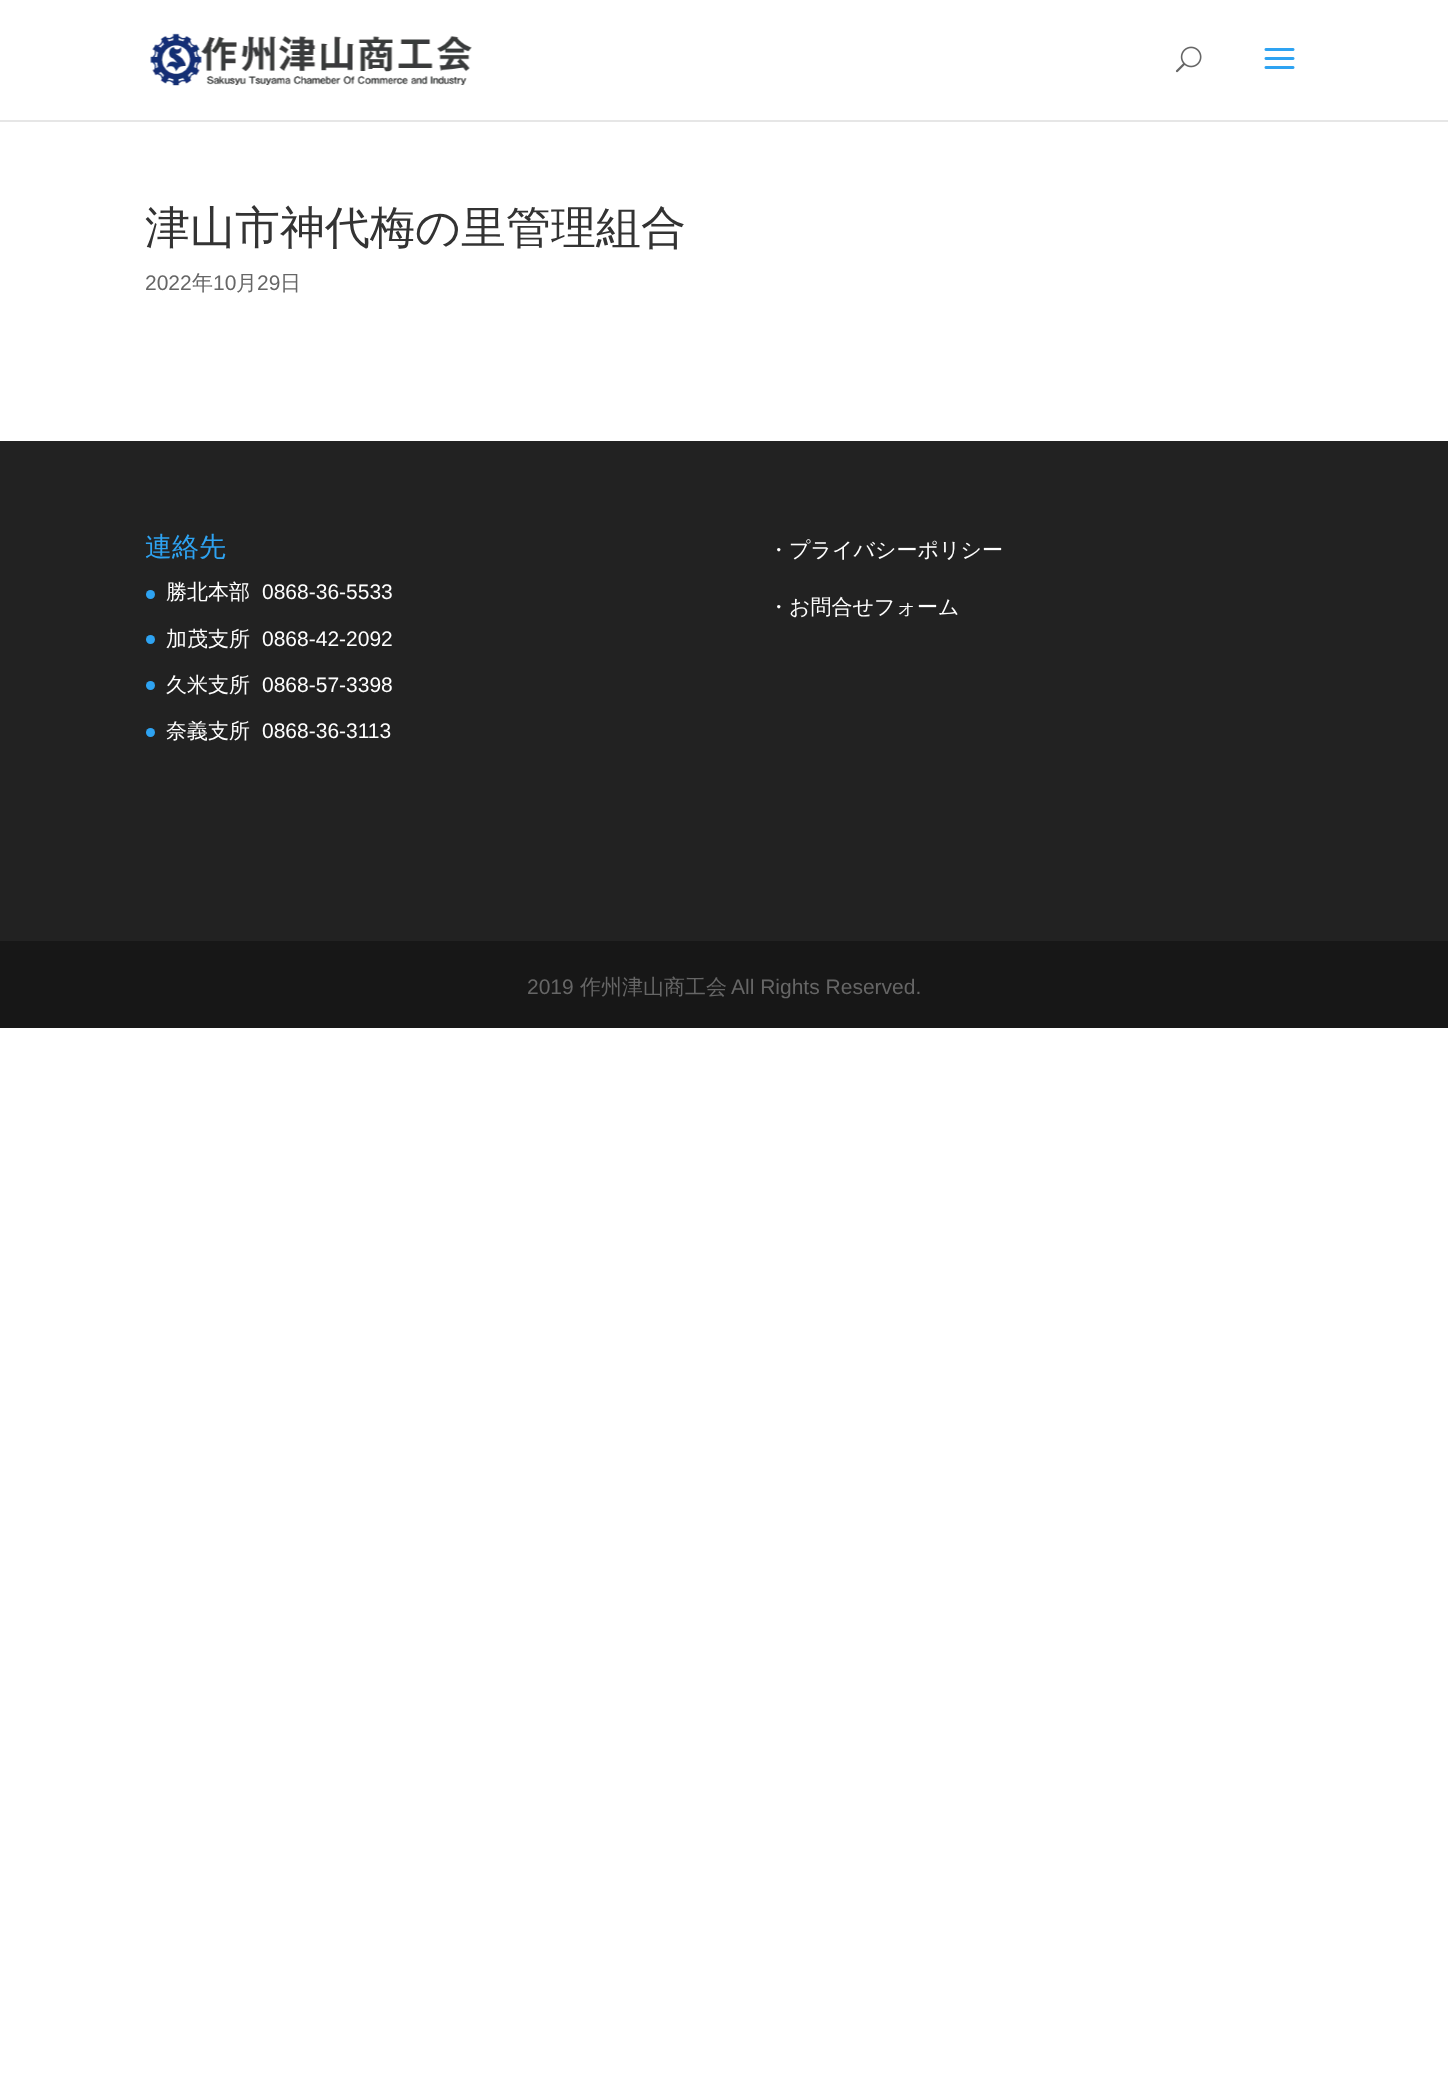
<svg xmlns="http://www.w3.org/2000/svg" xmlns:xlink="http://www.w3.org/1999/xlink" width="1448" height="2093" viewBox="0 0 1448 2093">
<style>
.cls-1{font:500 45px WenQuanYi Zen Hei;fill:#333333}
.cls-2{font:21px Liberation Sans;fill:#666666}
.cls-3{font:500 21px WenQuanYi Zen Hei;fill:#666666}
.cls-4{font:500 27px WenQuanYi Zen Hei;fill:#2ea3f2}
.cls-5{font:500 21px WenQuanYi Zen Hei;fill:#ffffff}
.cls-6{font:21px Liberation Sans;fill:#ffffff}
</style>
<rect width="100%" height="100%" fill="#ffffff"/>
<rect fill="#e6e6e6" x="0" y="120" width="1448" height="2"/>
<image xlink:href="image0.png" x="150" y="33" width="322" height="53"/>
<image xlink:href="image1.png" x="1175" y="46" width="27" height="27"/>
<image xlink:href="image2.png" x="1264" y="48" width="31" height="21"/>
<rect fill="#222222" x="0" y="441" width="1448" height="500"/>
<circle fill="#2ea3f2" cx="150.5" cy="594.5" r="4.5"/>
<circle fill="#2ea3f2" cx="150.5" cy="639.5" r="4.5"/>
<circle fill="#2ea3f2" cx="150.5" cy="685.5" r="4.5"/>
<circle fill="#2ea3f2" cx="150.5" cy="732.5" r="4.5"/>
<rect fill="#171717" x="0" y="941" width="1448" height="87"/>
<text class="cls-1" x="145" y="243">津山市神代梅の里管理組合</text>
<text class="cls-2" x="145" y="290">2022</text>
<text class="cls-3" x="192" y="290">年</text>
<text class="cls-2" x="213" y="290">10</text>
<text class="cls-3" x="236" y="290">月</text>
<text class="cls-2" x="257" y="290">29</text>
<text class="cls-3" x="280" y="290">日</text>
<text class="cls-4" x="145" y="556">連絡先</text>
<text class="cls-5" x="166" y="599">勝北本部</text>
<text class="cls-6" x="262" y="599">0868-36-5533</text>
<text class="cls-5" x="166" y="646">加茂支所</text>
<text class="cls-6" x="262" y="646">0868-42-2092</text>
<text class="cls-5" x="166" y="692">久米支所</text>
<text class="cls-6" x="262" y="692">0868-57-3398</text>
<text class="cls-5" x="166" y="738">奈義支所</text>
<text class="cls-6" x="262" y="738">0868-36-3113</text>
<text class="cls-5" x="768" y="557">・プライバシーポリシー</text>
<text class="cls-5" x="768" y="614">・お問合せフォーム</text>
<text class="cls-2" x="527" y="994">2019</text>
<text class="cls-3" x="580" y="994">作州津山商工会</text>
<text class="cls-2" x="731" y="994">All Rights Reserved.</text>
</svg>
